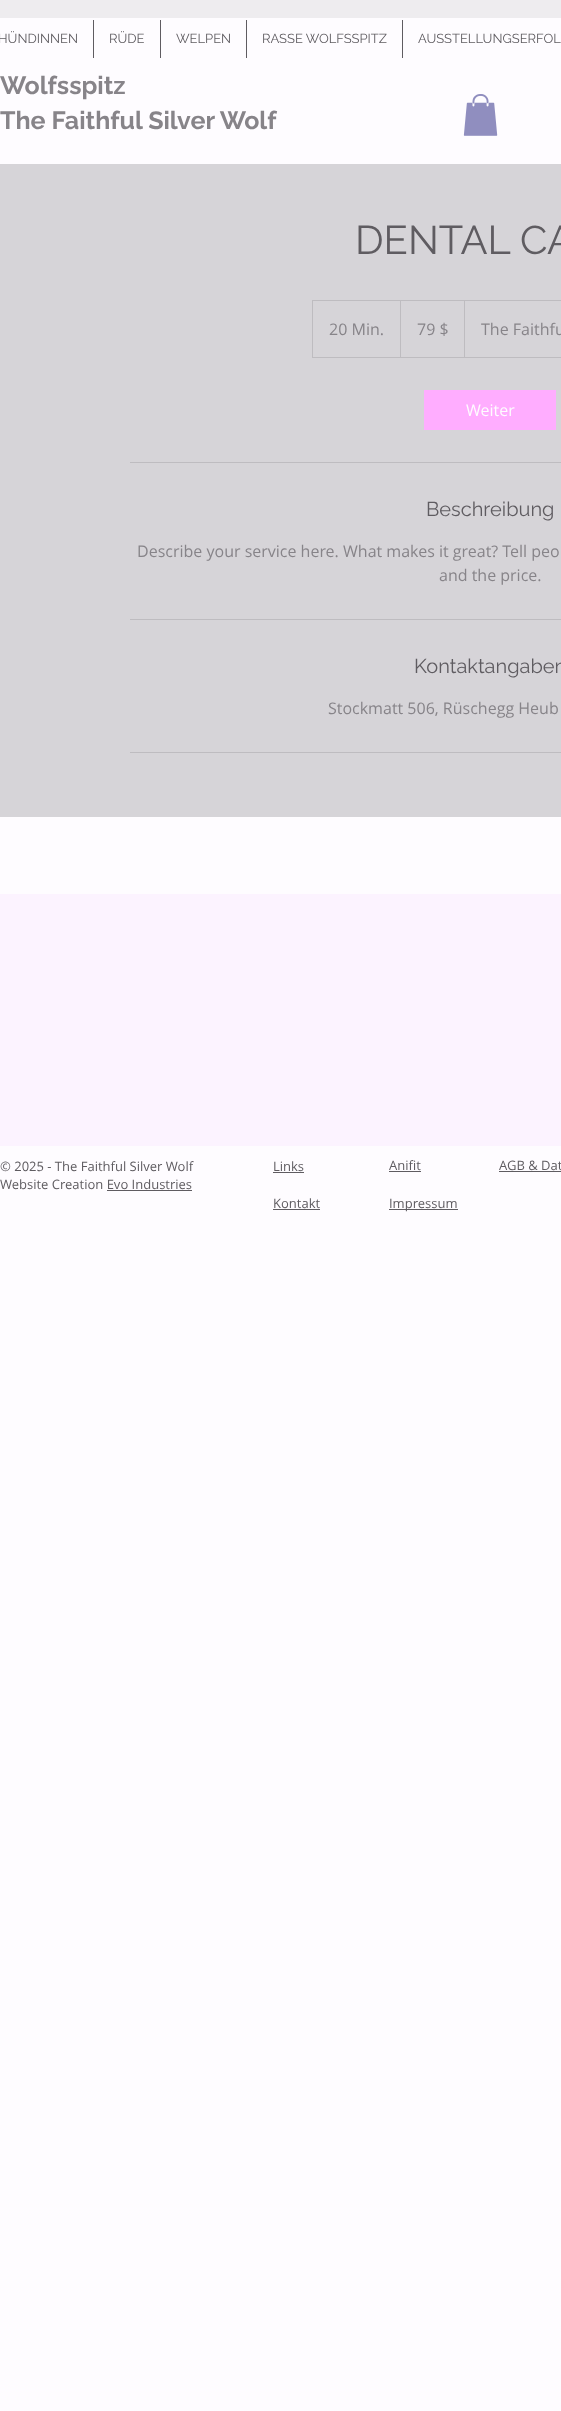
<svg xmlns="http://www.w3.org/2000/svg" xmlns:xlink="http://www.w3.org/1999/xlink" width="561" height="2411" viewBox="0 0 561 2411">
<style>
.cls-1{font:13px Raleway;fill:#5f5c61}
.cls-2{font:bold 25px Raleway;fill:#878489}
.cls-3{font:40px Raleway;fill:#5f5c61}
.cls-4{font:16px Open Sans;fill:#878489}
.cls-5{font:16px Open Sans;fill:#fefcff}
.cls-6{font:20px Raleway;fill:#5f5c61}
.cls-7{font:13px Open Sans;fill:#5f5c61}
</style>
<rect width="100%" height="100%" fill="#fefcff"/>
<rect fill="#5f5c61" x="93" y="20" width="1" height="38"/>
<rect fill="#5f5c61" x="160" y="20" width="1" height="38"/>
<rect fill="#5f5c61" x="246" y="20" width="1" height="38"/>
<rect fill="#5f5c61" x="402" y="20" width="1" height="38"/>
<rect fill="#eeecef" x="0" y="0" width="561" height="18"/>
<image xlink:href="image0.png" x="463" y="94" width="35" height="42"/>
<rect fill="#d6d4d8" x="0" y="164" width="561" height="653"/>
<rect fill="none" stroke="#bebcc0" x="312.5" y="300.5" width="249" height="57"/>
<path fill="#bebcc0" d="M400 357V300L401 301V357Z"/>
<path fill="#bebcc0" d="M464 357V300L465 301V357Z"/>
<rect fill="#ffadff" x="424" y="390" width="132" height="40"/>
<rect fill="#bebcc0" x="130" y="462" width="431" height="1"/>
<rect fill="#bebcc0" x="130" y="619" width="431" height="1"/>
<rect fill="#bebcc0" x="130" y="752" width="431" height="1"/>
<rect fill="#fcf3ff" x="0" y="894" width="561" height="252"/>
<rect fill="#5f5c61" x="107" y="1190" width="85" height="1"/>
<rect fill="#5f5c61" x="273" y="1172" width="31" height="1"/>
<rect fill="#5f5c61" x="389" y="1171" width="32" height="1"/>
<rect fill="#5f5c61" x="499" y="1171" width="62" height="1"/>
<rect fill="#5f5c61" x="273" y="1209" width="47" height="1"/>
<rect fill="#5f5c61" x="389" y="1209" width="69" height="1"/>
<text class="cls-1" x="-2" y="43">HÜNDINNEN</text>
<text class="cls-1" x="109" y="43">RÜDE</text>
<text class="cls-1" x="176" y="43">WELPEN</text>
<text class="cls-1" x="262" y="43">RASSE WOLFSSPITZ</text>
<text class="cls-1" x="418" y="43">AUSSTELLUNGSERFOL</text>
<text class="cls-2"><tspan x="0" y="94">Wolfsspitz</tspan><tspan x="0" y="129">The Faithful Silver Wolf</tspan></text>
<text class="cls-3" x="355" y="254">DENTAL CA</text>
<text class="cls-4" x="329" y="335">20 Min.</text>
<text class="cls-4" x="417" y="335">79 $</text>
<text class="cls-4" x="481" y="335">The Faithfu</text>
<text class="cls-5" x="466" y="416">Weiter</text>
<text class="cls-6" x="426" y="516">Beschreibung</text>
<text class="cls-4" x="137" y="557">Describe your service here. What makes it great? Tell peo</text>
<text class="cls-4" x="439" y="581">and the price.</text>
<text class="cls-6" x="414" y="673">Kontaktangaben</text>
<text class="cls-4" x="328" y="714">Stockmatt 506, Rüschegg Heub</text>
<text class="cls-7"><tspan x="0" y="1171">© 2025 - The Faithful Silver Wolf</tspan><tspan x="0" y="1189">Website Creation Evo Industries</tspan></text>
<text class="cls-7" x="273" y="1171">Links</text>
<text class="cls-7" x="389" y="1170">Anifit</text>
<text class="cls-7" x="499" y="1170">AGB &amp; Dat</text>
<text class="cls-7" x="273" y="1208">Kontakt</text>
<text class="cls-7" x="389" y="1208">Impressum</text>
</svg>
